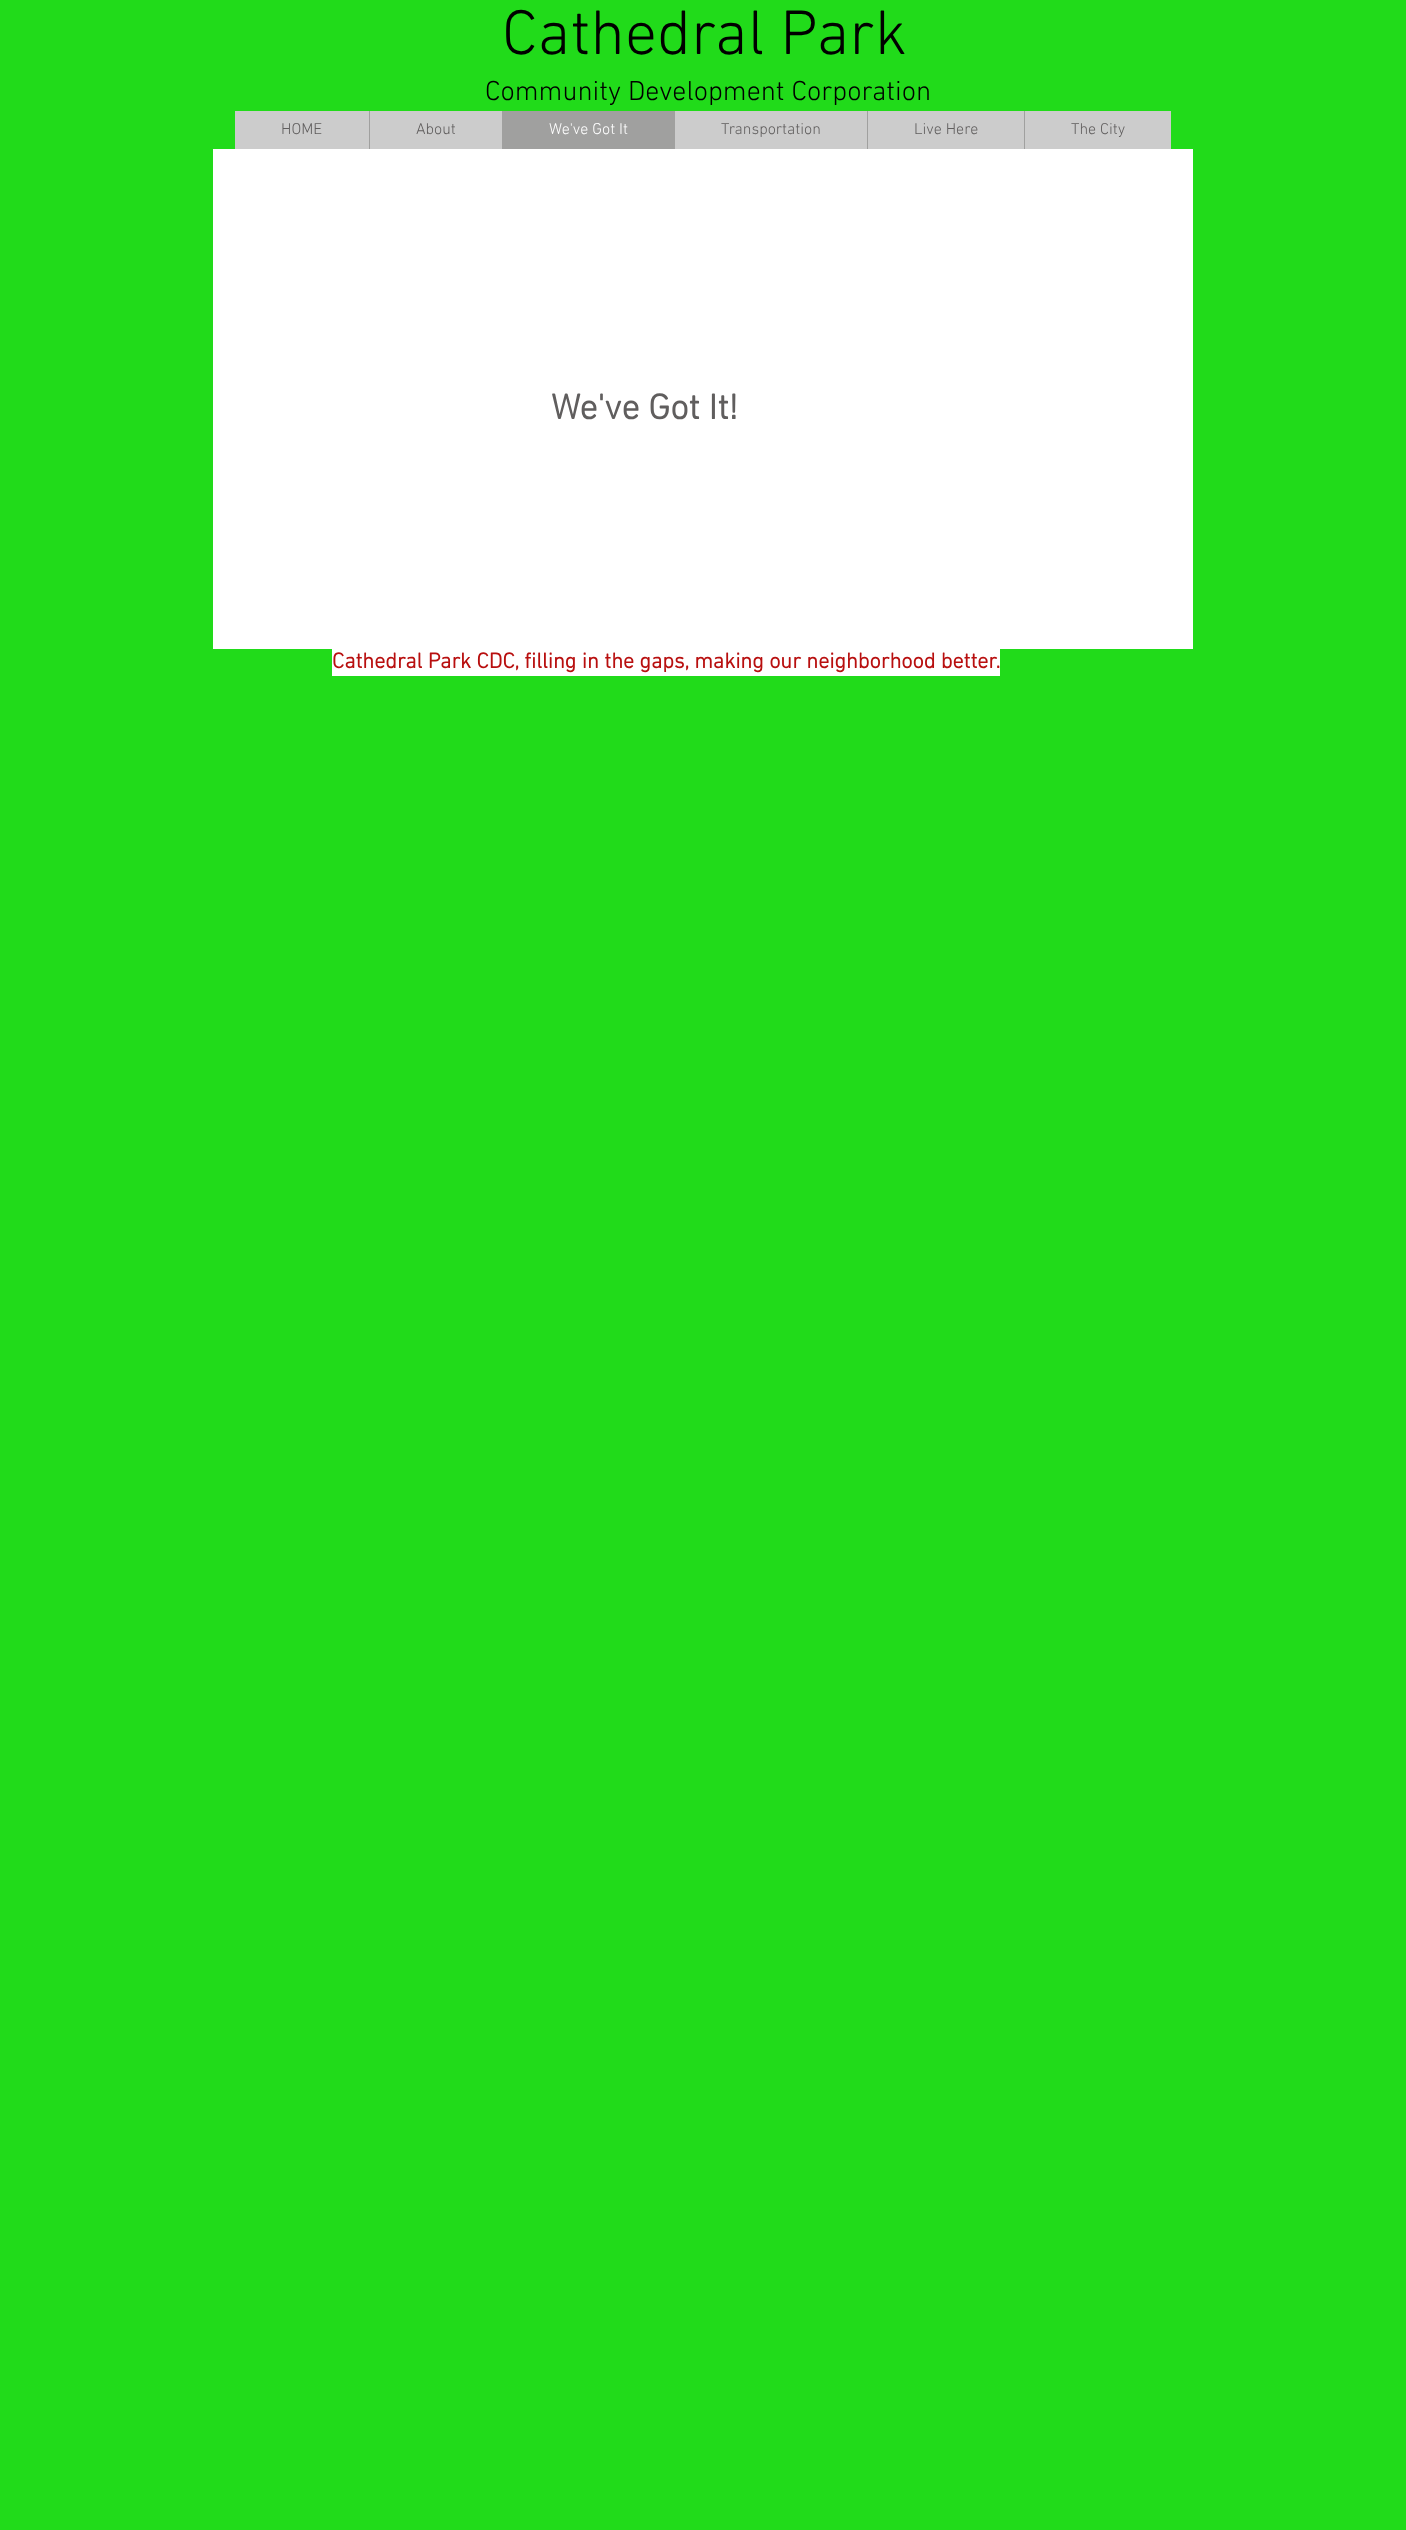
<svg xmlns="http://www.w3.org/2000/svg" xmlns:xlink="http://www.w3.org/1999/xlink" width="1406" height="2530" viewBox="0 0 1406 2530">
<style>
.cls-1{font:300 64px 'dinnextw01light';fill:#000000}
.cls-2{font:300 28px 'dinnextw01light';fill:#000000}
.cls-3{font:300 16px 'dinnextw01light';fill:#605e5e}
.cls-4{font:300 16px 'dinnextw01light';fill:#ffffff}
.cls-5{font:bold 36px 'dinnextw01light';fill:#605e5e}
.cls-6{font:bold 22px 'dinnextw01light';fill:#b80f0f}
</style>
<rect width="100%" height="100%" fill="#21db1a"/>
<rect fill="#cccccc" x="235" y="111" width="936" height="38"/>
<rect fill="#a0a09f" x="369" y="111" width="1" height="38"/>
<rect fill="#a0a09f" x="502" y="111" width="173" height="38"/>
<rect fill="#a0a09f" x="867" y="111" width="1" height="38"/>
<rect fill="#a0a09f" x="1024" y="111" width="1" height="38"/>
<rect fill="#ffffff" x="213" y="149" width="980" height="500"/>
<rect fill="#ffffff" x="332" y="649" width="668" height="27"/>
<text class="cls-1" x="502" y="54">Cathedral Park</text>
<text class="cls-2" x="485" y="100">Community Development Corporation</text>
<text class="cls-3" x="281" y="134">HOME</text>
<text class="cls-3" x="416" y="134">About</text>
<text class="cls-4" x="549" y="134">We've Got It</text>
<text class="cls-3" x="721" y="134">Transportation</text>
<text class="cls-3" x="914" y="134">Live Here</text>
<text class="cls-3" x="1071" y="134">The City</text>
<text class="cls-5" x="551" y="419">We've Got It!</text>
<text class="cls-6" x="332" y="668">Cathedral Park CDC, filling in the gaps, making our neighborhood better.</text>
</svg>
